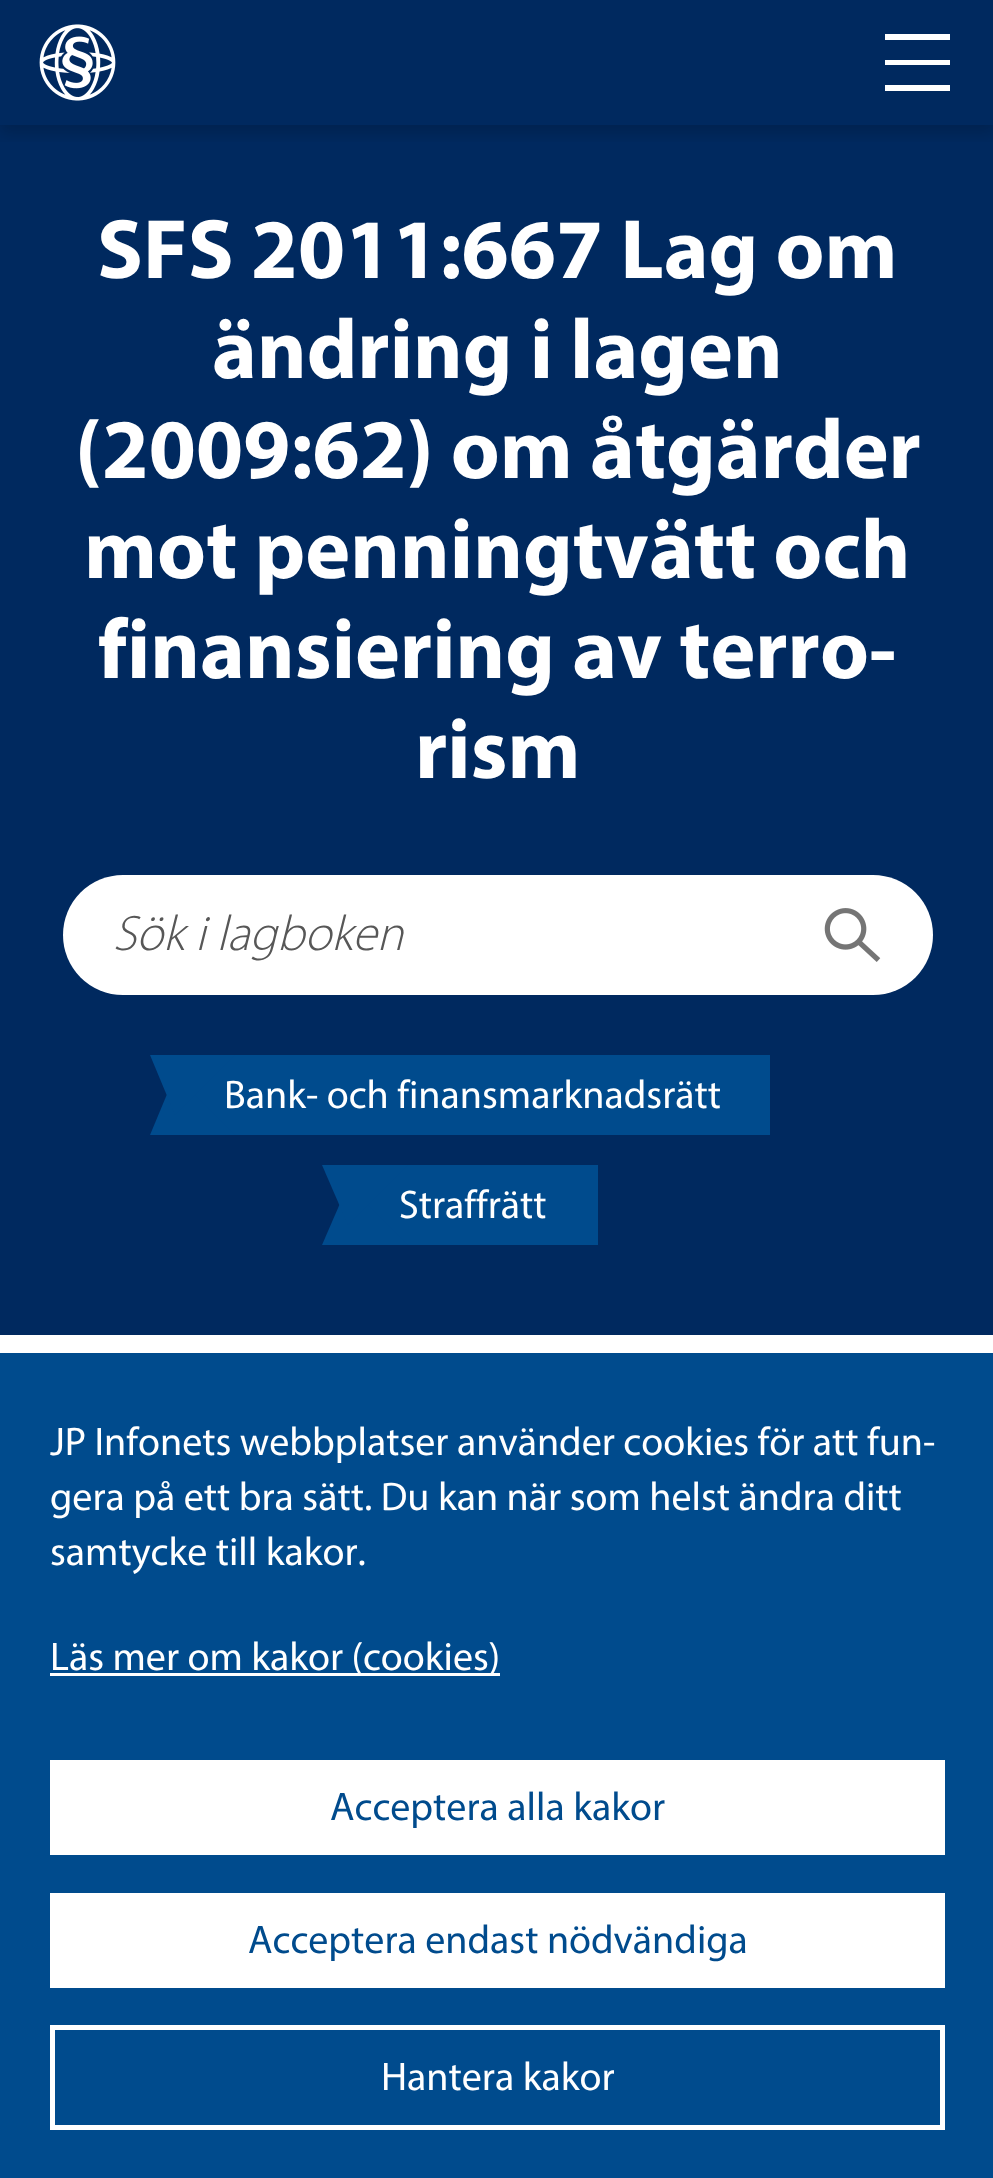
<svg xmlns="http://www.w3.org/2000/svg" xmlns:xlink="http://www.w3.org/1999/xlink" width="993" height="2178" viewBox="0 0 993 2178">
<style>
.cls-1{font:bold 85px 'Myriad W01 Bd';fill:#ffffff}
.cls-2{font:italic 300 50px Myriad;fill:#575757}
.cls-3{font:40px Myriad;fill:#ffffff}
.cls-4{font:40px Myriad;fill:#004b8d}
</style>
<defs>
<clipPath id="clip1"><rect x="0" y="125" width="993" height="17"/></clipPath>
</defs>
<rect width="100%" height="100%" fill="#ffffff"/>
<rect fill="#00295f" x="0" y="0" width="993" height="1335"/>
<g clip-path="url(#clip1)">
<rect fill="#000000" fill-opacity="0.16" filter="blur(7.5px)" x="0" y="8" width="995" height="125"/>
</g>
<image xlink:href="image0.png" x="39" y="24" width="77" height="77"/>
<path fill="#ffffff" d="M885 85H950V91H885ZM885 60H950V65H885ZM885 34H950V40H885Z"/>
<rect fill="#ffffff" x="63" y="875" width="870" height="120" rx="60"/>
<image xlink:href="image1.png" x="824" y="908" width="57" height="54"/>
<rect fill="#004b8d" x="195" y="1055" width="575" height="80"/>
<rect fill="#004b8d" x="368" y="1165" width="230" height="80"/>
<rect fill="#004b8d" x="0" y="1353" width="993" height="825"/>
<rect fill="#ffffff" x="50" y="1673" width="450" height="3"/>
<rect fill="#ffffff" x="50" y="1760" width="895" height="95"/>
<rect fill="#ffffff" x="50" y="1893" width="895" height="95"/>
<rect fill="none" stroke="#ffffff" stroke-width="5" x="52.5" y="2027.5" width="890" height="100"/>
<text class="cls-1" x="97" y="278">SFS 2011:667 Lag om</text>
<text class="cls-1" x="212" y="378">ändring i lagen</text>
<text class="cls-1" x="75" y="478">(2009:62) om åtgärder</text>
<text class="cls-1" x="84" y="578">mot penningtvätt och</text>
<text class="cls-1" x="98" y="678">finansiering av terro-</text>
<text class="cls-1" x="415" y="778">rism</text>
<text class="cls-2" x="113" y="950">Sök i lagboken</text>
<text class="cls-3" x="224" y="1108">Bank- och finansmarknadsrätt</text>
<path fill="#004b8d" d="M235 1135H150L175 1075Z"/>
<path fill="#004b8d" d="M150 1055H235L175 1115Z"/>
<text class="cls-3" x="399" y="1218">Straffrätt</text>
<path fill="#004b8d" d="M408 1245H322L348 1185Z"/>
<path fill="#004b8d" d="M322 1165H408L348 1225Z"/>
<text class="cls-3"><tspan x="50" y="1455">JP Infonets webbplatser använder cookies för att fun-</tspan><tspan x="50" y="1510">gera på ett bra sätt. Du kan när som helst ändra ditt</tspan><tspan x="50" y="1565">samtycke till kakor.</tspan></text>
<text class="cls-3" x="50" y="1670">Läs mer om kakor (cookies)</text>
<text class="cls-4" x="330" y="1820">Acceptera alla kakor</text>
<text class="cls-4" x="248" y="1953">Acceptera endast nödvändiga</text>
<text class="cls-3" x="381" y="2090">Hantera kakor</text>
</svg>
